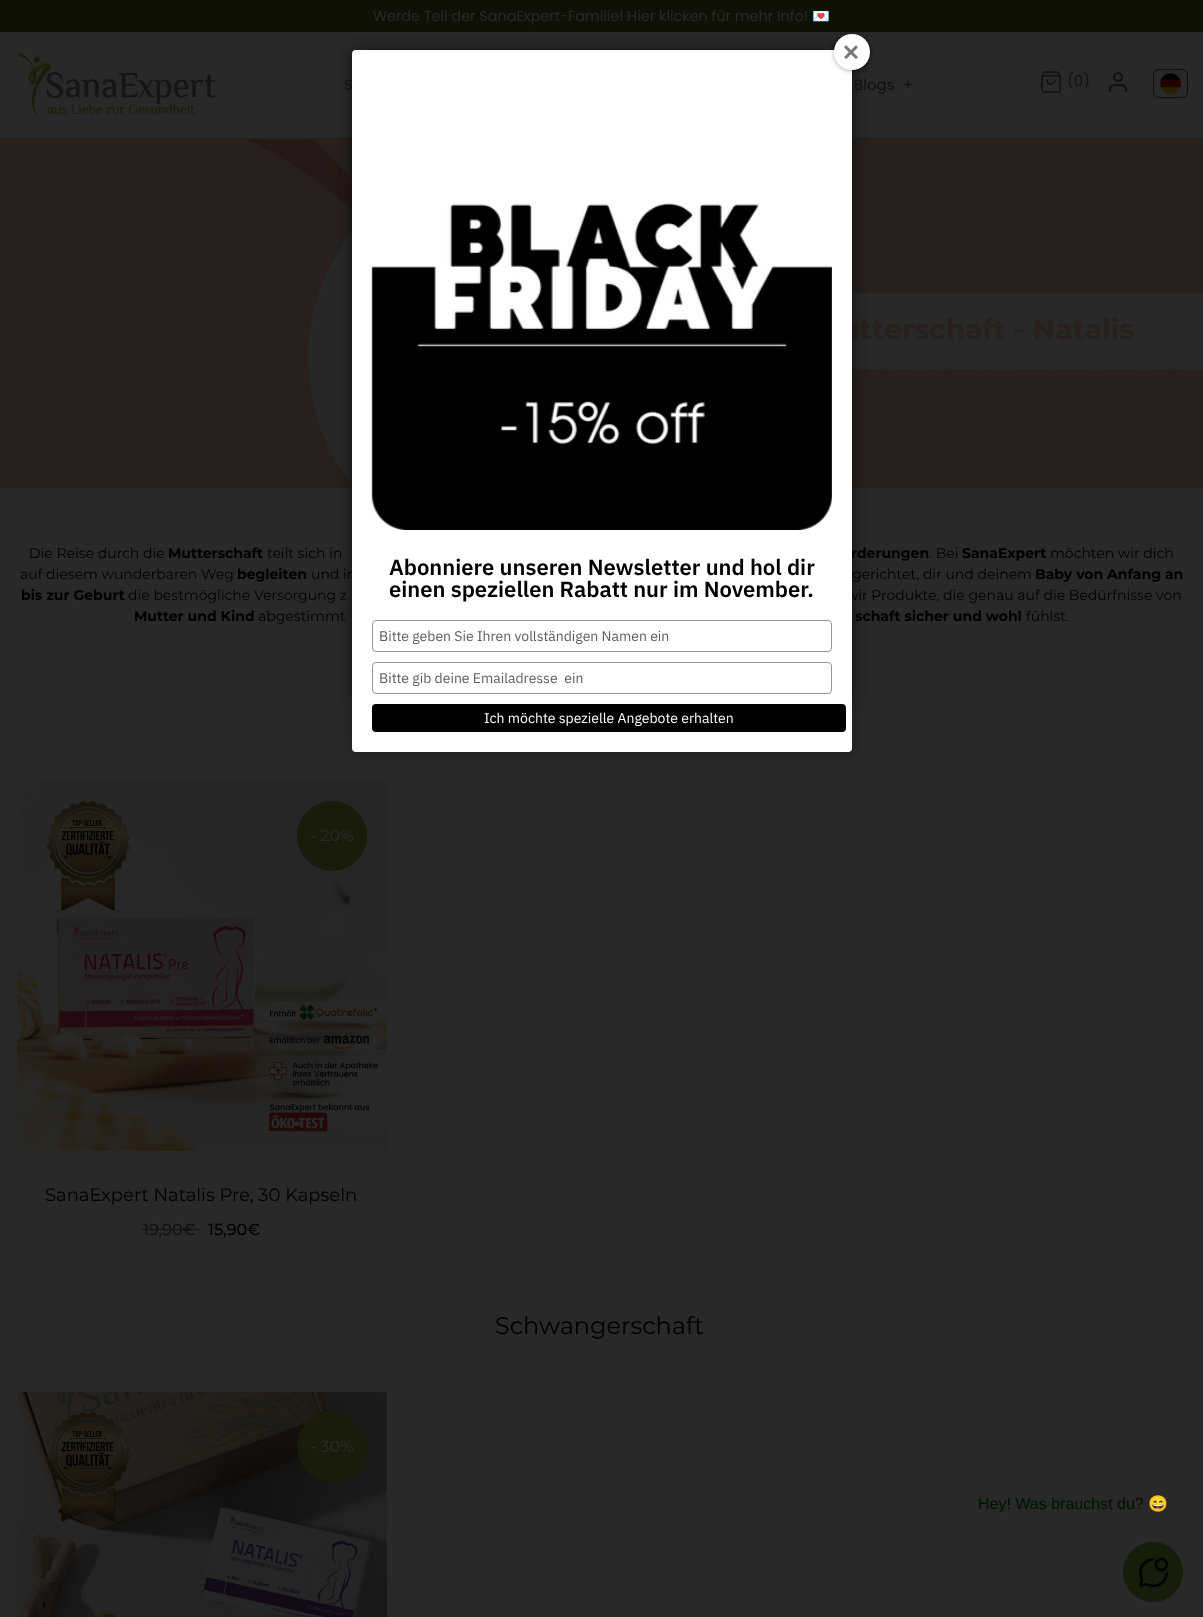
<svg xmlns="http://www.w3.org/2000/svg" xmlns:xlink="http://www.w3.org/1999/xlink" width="1203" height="1617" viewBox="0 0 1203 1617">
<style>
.cls-1{font:14.4px Poppins;fill:#292929}
.cls-2{font:14.4px Noto Color Emoji;fill:#292929}
.cls-3{font:15px Poppins;fill:#111111}
.cls-4{font:14px Montserrat;fill:#000000}
.cls-5{font:bold 14px Montserrat;fill:#000000}
.cls-6{font:500 16px Montserrat;fill:#292929}
.cls-7{font:18px Montserrat;fill:#000000}
.cls-8{font:500 16px Montserrat;fill:#111111}
.cls-9{font:500 16px Montserrat;fill:#000000}
.cls-10{font:24px Montserrat;fill:#000000}
.cls-11{font:600 22px IBM Plex Sans;fill:#000000}
.cls-12{font:14px IBM Plex Sans;fill:#5d5d5d}
.cls-13{font:14px IBM Plex Sans;fill:#ffffff}
.cls-14{font:16px Liberation Sans;fill:#001300}
.cls-15{font:16px Noto Color Emoji;fill:#001300}
</style>
<rect width="100%" height="100%" fill="#292929"/>
<rect fill="#0e1205" x="0" y="0" width="1203" height="32"/>
<rect fill="#1f2122" x="0" y="138" width="1203" height="1"/>
<image xlink:href="image0.png" x="18" y="52" width="198" height="66"/>
<image xlink:href="image1.png" x="1041" y="71" width="20" height="22"/>
<circle fill="none" stroke="#111111" stroke-width="2" cx="1118" cy="77" r="4"/>
<path fill="none" stroke="#111111" stroke-width="2" stroke-linecap="round" stroke-linejoin="round" d="M1126 91C1126 84.5 1123.5 85 1118 85C1112.5 85 1110 84.5 1110 91"/>
<rect fill="none" stroke="#0e0e0e" x="1153.5" y="69.5" width="34" height="28" rx="5.5"/>
<image xlink:href="image2.png" x="1160" y="73" width="21" height="21"/>
<image xlink:href="image3.png" x="0" y="139" width="1203" height="349"/>
<rect fill="#000000" fill-opacity="0.3" filter="blur(6.5px)" x="352" y="51" width="500" height="646" rx="5"/>
<rect fill="#000000" fill-opacity="0.3" filter="blur(2.5px)" x="834" y="35" width="36" height="36" rx="18"/>
<image xlink:href="image4.png" x="17" y="781" width="370" height="370"/>
<circle fill="#171d0a" cx="332" cy="836" r="35"/>
<image xlink:href="image5.png" x="17" y="1392" width="370" height="225"/>
<circle fill="#171d0a" cx="332" cy="1447" r="35"/>
<rect fill="#000000" fill-opacity="0.3" filter="blur(6.5px)" x="352" y="51" width="500" height="702" rx="4"/>
<circle fill="#161d0a" cx="1153" cy="1572" r="30"/>
<image xlink:href="image8.png" x="1138" y="1557" width="31" height="31"/>
<text class="cls-1" x="373" y="21">Werde Teil der SanaExpert-Familie! Hier klicken für mehr Info!</text>
<text class="cls-2" x="812" y="21">💌</text>
<text class="cls-3" x="344" y="90">S</text>
<text class="cls-3" x="854" y="90">Blogs</text>
<text class="cls-3" x="903" y="90">+</text>
<text class="cls-3" x="1067" y="86">(0)</text>
<text class="cls-4" x="29" y="558">Die Reise durch die</text>
<text class="cls-5" x="168" y="558">Mutterschaft</text>
<text class="cls-4" x="267" y="558">teilt sich in</text>
<text class="cls-5" x="851" y="558">rderungen</text>
<text class="cls-4" x="929" y="558">. Bei</text>
<text class="cls-5" x="962" y="558">SanaExpert</text>
<text class="cls-4" x="1050" y="558">möchten wir dich</text>
<text class="cls-4" x="20" y="579">auf diesem wunderbaren Weg</text>
<text class="cls-5" x="237" y="579">begleiten</text>
<text class="cls-4" x="311" y="579">und in</text>
<text class="cls-4" x="852" y="579">gerichtet, dir und deinem</text>
<text class="cls-5" x="1035" y="579">Baby von Anfang an</text>
<text class="cls-5" x="21" y="600">bis zur Geburt</text>
<text class="cls-4" x="128" y="600">die bestmögliche Versorgung z</text>
<text class="cls-4" x="846" y="600">wir Produkte, die genau auf die Bedürfnisse von</text>
<text class="cls-5" x="134" y="621">Mutter und Kind</text>
<text class="cls-4" x="258" y="621">abgestimmt</text>
<text class="cls-5" x="855" y="621">schaft sicher und wohl</text>
<text class="cls-4" x="1026" y="621">fühlst.</text>
<text class="cls-6" x="310" y="841">- 20%</text>
<text class="cls-7" x="45" y="1201">SanaExpert Natalis Pre, 30 Kapseln</text>
<text class="cls-8" x="143" y="1235">19,90€</text>
<rect fill="#161616" x="143" y="1229" width="57" height="1"/>
<text class="cls-9" x="208" y="1235">15,90€</text>
<text class="cls-10" x="495" y="1334">Schwangerschaft</text>
<text class="cls-6" x="310" y="1452">- 30%</text>
<rect fill="#ffffff" x="352" y="50" width="500" height="702" rx="4"/>
<rect fill="#000000" fill-opacity="0.3" filter="blur(2.5px)" x="834" y="35" width="36" height="36" rx="18"/>
<circle fill="#ffffff" cx="852" cy="52" r="18"/>
<image xlink:href="image6.png" x="844" y="45" width="14" height="14"/>
<image xlink:href="image7.png" x="371" y="203" width="461" height="327"/>
<text class="cls-11"><tspan x="389" y="575">Abonniere unseren Newsletter und hol dir</tspan><tspan x="389" y="597">einen speziellen Rabatt nur im November.</tspan></text>
<rect fill="none" stroke="#979797" x="372.5" y="620.5" width="459" height="31" rx="3.5"/>
<text class="cls-12" x="379" y="641">Bitte geben Sie Ihren vollständigen Namen ein</text>
<rect fill="none" stroke="#979797" x="372.5" y="662.5" width="459" height="31" rx="3.5"/>
<text class="cls-12" xml:space="preserve" x="379" y="683">Bitte gib deine Emailadresse  ein</text>
<rect fill="#000000" x="372" y="704" width="474" height="28" rx="4"/>
<text class="cls-13" x="484" y="723">Ich möchte spezielle Angebote erhalten</text>
<text class="cls-14" x="978" y="1509">Hey! Was brauchst du?</text>
<text class="cls-15" x="1148" y="1509">😄</text>
</svg>
